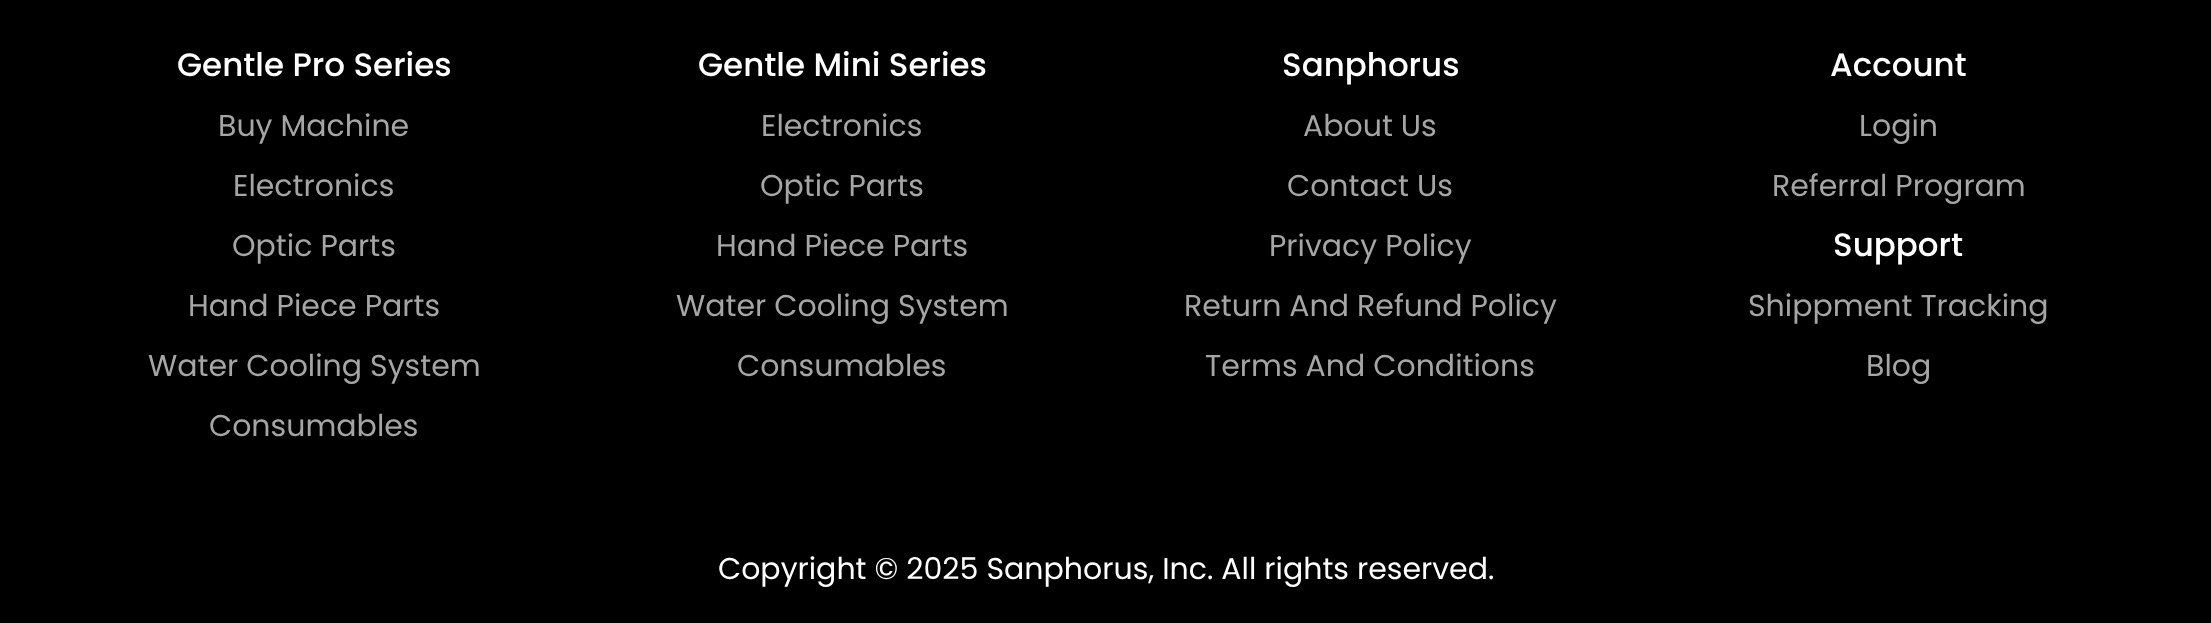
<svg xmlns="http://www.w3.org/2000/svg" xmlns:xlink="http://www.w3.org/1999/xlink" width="2211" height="623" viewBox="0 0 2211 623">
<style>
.cls-1{font:500 32.5px Poppins;fill:#ffffff}
.cls-2{font:30px Poppins;fill:#a5a5a5}
.cls-3{font:30px Poppins;fill:#ffffff}
</style>
<rect width="100%" height="100%" fill="#000000"/>
<text class="cls-1" x="177" y="76">Gentle Pro Series</text>
<text class="cls-2" x="218" y="136">Buy Machine</text>
<text class="cls-2" x="233" y="196">Electronics</text>
<text class="cls-2" x="232" y="256">Optic Parts</text>
<text class="cls-2" x="188" y="316">Hand Piece Parts</text>
<text class="cls-2" x="148" y="376">Water Cooling System</text>
<text class="cls-2" x="209" y="436">Consumables</text>
<text class="cls-1" x="698" y="76">Gentle Mini Series</text>
<text class="cls-2" x="761" y="136">Electronics</text>
<text class="cls-2" x="760" y="196">Optic Parts</text>
<text class="cls-2" x="716" y="256">Hand Piece Parts</text>
<text class="cls-2" x="676" y="316">Water Cooling System</text>
<text class="cls-2" x="737" y="376">Consumables</text>
<text class="cls-1" x="1282" y="76">Sanphorus</text>
<text class="cls-2" x="1303" y="136">About Us</text>
<text class="cls-2" x="1287" y="196">Contact Us</text>
<text class="cls-2" x="1269" y="256">Privacy Policy</text>
<text class="cls-2" x="1184" y="316">Return And Refund Policy</text>
<text class="cls-2" x="1205" y="376">Terms And Conditions</text>
<text class="cls-1" x="1830" y="76">Account</text>
<text class="cls-2" x="1859" y="136">Login</text>
<text class="cls-2" x="1772" y="196">Referral Program</text>
<text class="cls-1" x="1833" y="256">Support</text>
<text class="cls-2" x="1748" y="316">Shippment Tracking</text>
<text class="cls-2" x="1866" y="376">Blog</text>
<text class="cls-3" x="718" y="579">Copyright © 2025 Sanphorus, Inc. All rights reserved.</text>
</svg>
